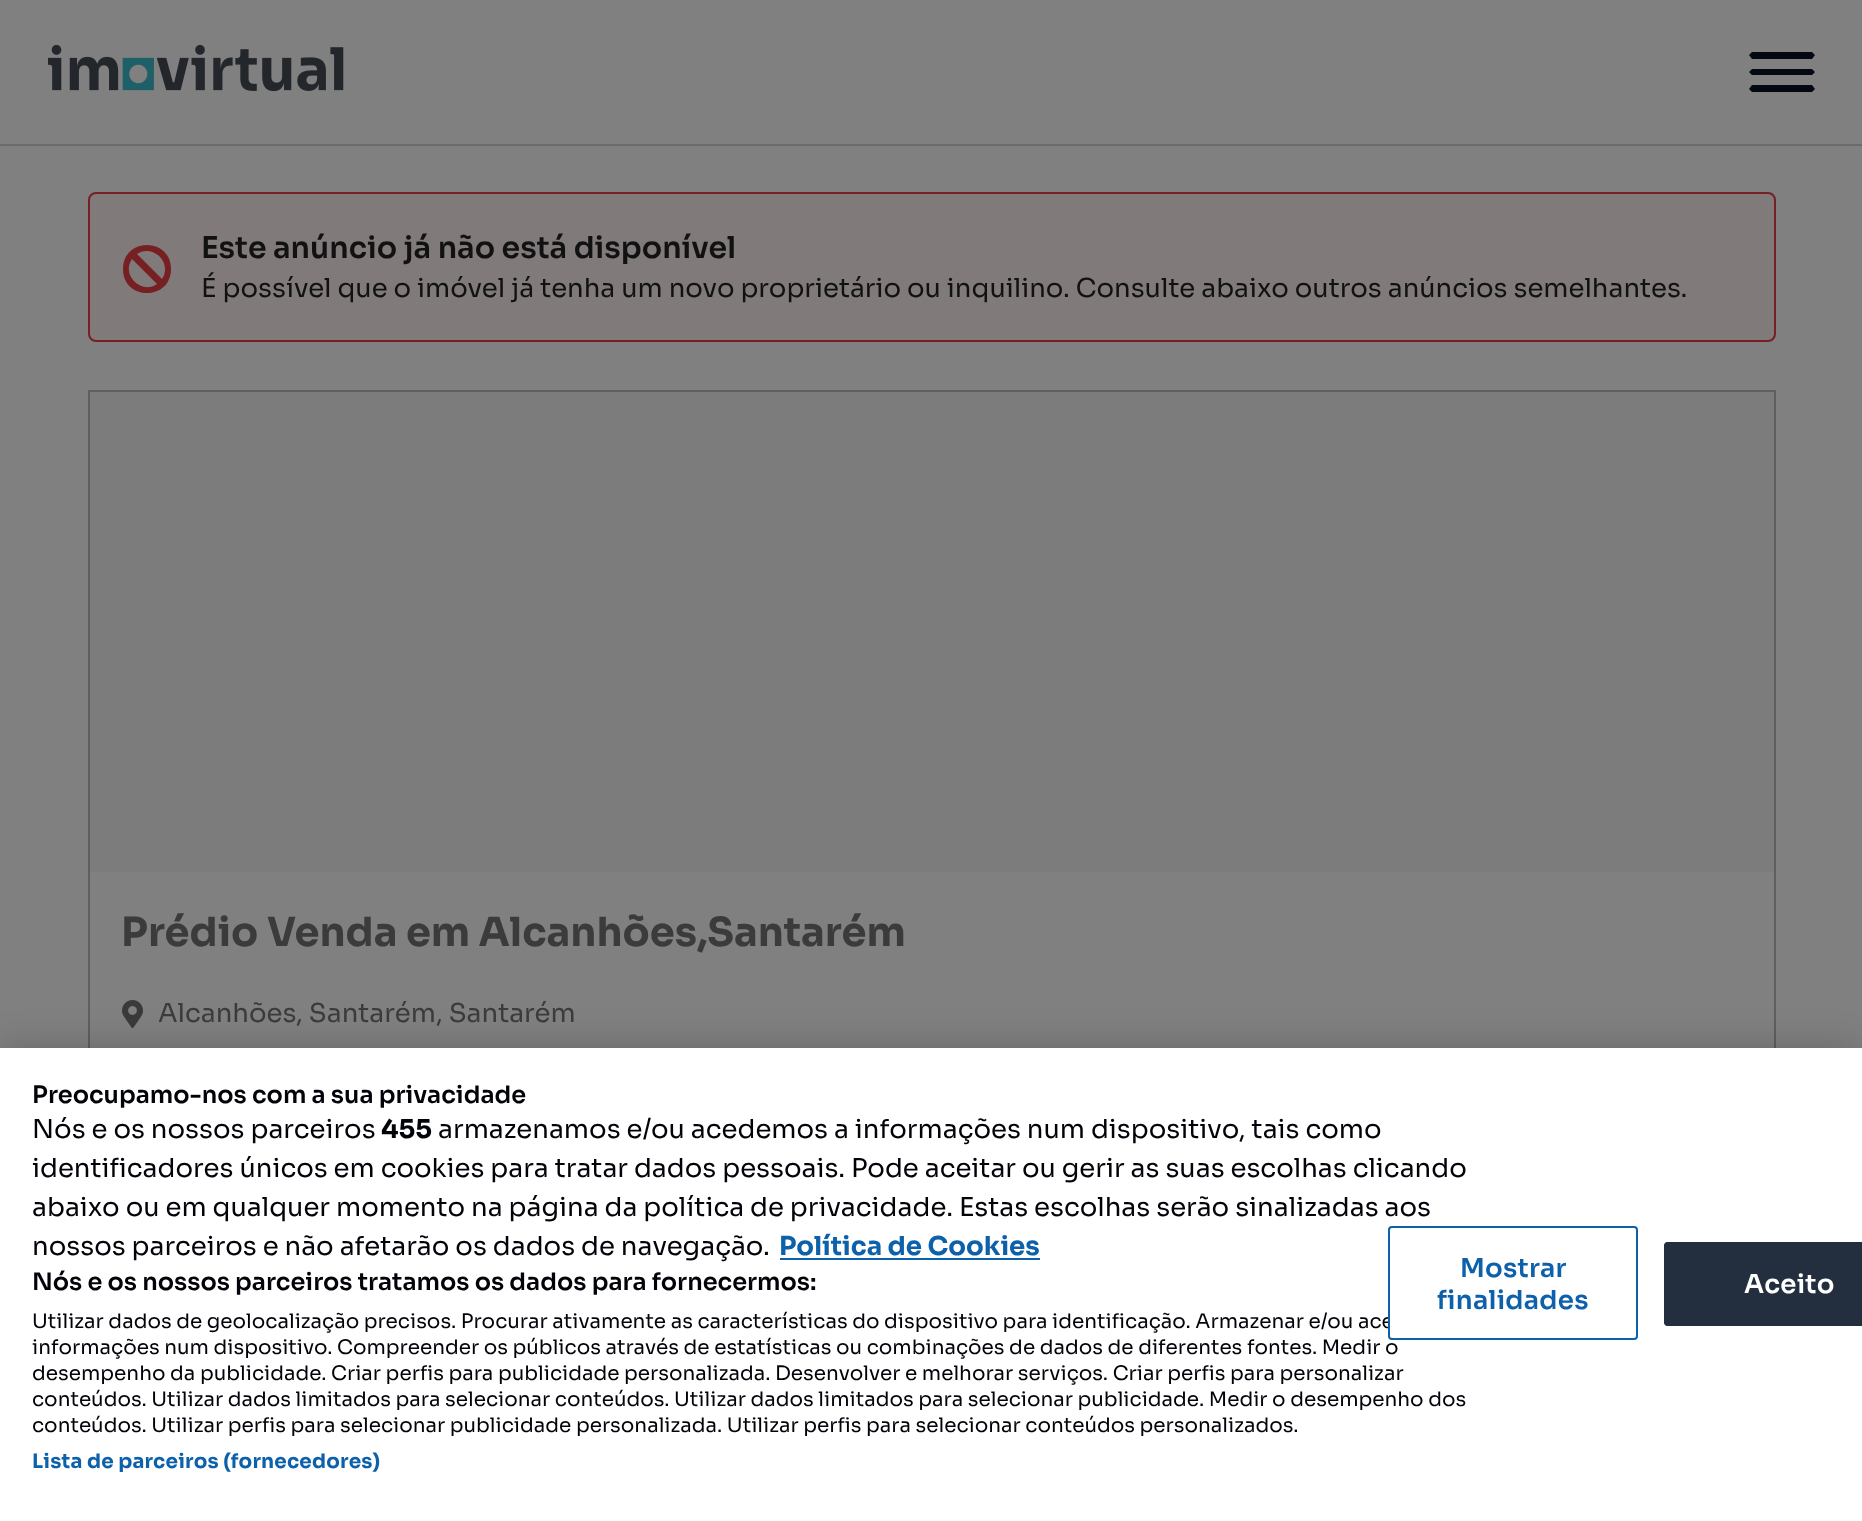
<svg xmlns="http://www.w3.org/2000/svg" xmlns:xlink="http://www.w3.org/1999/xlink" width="1862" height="1521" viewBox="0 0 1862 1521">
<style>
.cls-1{font:600 30px Sora;fill:#111111}
.cls-2{font:26px Sora;fill:#111111}
.cls-3{font:bold 40px Sora;fill:#3b3b3b}
.cls-4{font:26px Sora;fill:#3b3b3b}
.cls-5{font:600 24px Sora;fill:#020309}
.cls-6{font:26.02px Sora;fill:#020309}
.cls-7{font:bold 26.02px Sora;fill:#020309}
.cls-8{font:bold 26.02px Sora;fill:#0d61ab}
.cls-9{font:20px Sora;fill:#020309}
.cls-10{font:bold 20px Sora;letter-spacing:0.2px;fill:#0d61ab}
.cls-11{font:600 26.02px Sora;letter-spacing:0.25px;fill:#0d61ab}
.cls-12{font:600 26.02px Sora;letter-spacing:0.25px;fill:#ffffff}
</style>
<rect width="100%" height="100%" fill="#808080"/>
<rect fill="#6a6b6d" x="0" y="144" width="1862" height="2"/>
<image xlink:href="image0.png" x="48" y="44" width="296" height="48"/>
<path fill="#040911" d="M1749 55L1752 52H1812L1815 55L1812 59H1752ZM1752 69L1749 72L1752 75H1812L1815 72L1812 69ZM1752 85L1749 89L1752 92H1812L1815 89L1812 85Z"/>
<rect fill="#807a7a" stroke="#772024" stroke-width="2" x="89" y="193" width="1686" height="148" rx="7"/>
<path fill="#772024" d="M171 269C171 301 123 301 123 269C123 237 171 237 171 269M132 259C121 275 141 295 157 284ZM165 269C165 255 148 246 137 254L162 279C164 276 165 273 165 269"/>
<rect fill="none" stroke="#5f5f5f" stroke-width="2" x="89" y="391" width="1686" height="708"/>
<rect fill="#7c7c7c" x="90" y="392" width="1684" height="480"/>
<image xlink:href="image1.png" x="122" y="1000" width="21" height="28"/>
<rect fill="#000000" fill-opacity="0.2" filter="blur(18px)" x="0" y="1048" width="1862" height="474"/>
<rect fill="#ffffff" x="0" y="1048" width="1862" height="473"/>
<rect fill="#0d61ab" x="780" y="1258" width="260" height="2"/>
<path fill="#232e3f" d="M1668 1242H1862V1326H1668C1666 1326 1664 1324 1664 1322V1246C1664 1244 1666 1242 1668 1242Z"/>
<rect fill="none" stroke="#232e3f" stroke-width="2" x="1665" y="1243" width="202" height="82" rx="3"/>
<text class="cls-1" x="201" y="258">Este anúncio já não está disponível</text>
<text class="cls-2" x="201" y="297">É possível que o imóvel já tenha um novo proprietário ou inquilino. Consulte abaixo outros anúncios semelhantes.</text>
<text class="cls-3" x="121" y="946">Prédio Venda em Alcanhões,Santarém</text>
<text class="cls-4" x="158" y="1022">Alcanhões, Santarém, Santarém</text>
<text class="cls-5" x="32" y="1103">Preocupamo-nos com a sua privacidade</text>
<text class="cls-6" x="32" y="1138">Nós e os nossos parceiros</text>
<text class="cls-7" x="381" y="1138">455</text>
<text class="cls-6" x="438" y="1138">armazenamos e/ou acedemos a informações num dispositivo, tais como</text>
<text class="cls-6"><tspan x="32" y="1177">identificadores únicos em cookies para tratar dados pessoais. Pode aceitar ou gerir as suas escolhas clicando</tspan><tspan x="32" y="1216">abaixo ou em qualquer momento na página da política de privacidade. Estas escolhas serão sinalizadas aos</tspan><tspan x="32" y="1255">nossos parceiros e não afetarão os dados de navegação.</tspan></text>
<text class="cls-8" x="779" y="1255">Política de Cookies</text>
<text class="cls-5" x="32" y="1290">Nós e os nossos parceiros tratamos os dados para fornecermos:</text>
<text class="cls-9"><tspan x="32" y="1328">Utilizar dados de geolocalização precisos. Procurar ativamente as características do dispositivo para identificação. Armazenar e/ou ace</tspan><tspan x="32" y="1354">informações num dispositivo. Compreender os públicos através de estatísticas ou combinações de dados de diferentes fontes. Medir o</tspan><tspan x="32" y="1380">desempenho da publicidade. Criar perfis para publicidade personalizada. Desenvolver e melhorar serviços. Criar perfis para personalizar</tspan><tspan x="32" y="1406">conteúdos. Utilizar dados limitados para selecionar conteúdos. Utilizar dados limitados para selecionar publicidade. Medir o desempenho dos</tspan><tspan x="32" y="1432">conteúdos. Utilizar perfis para selecionar publicidade personalizada. Utilizar perfis para selecionar conteúdos personalizados.</tspan></text>
<text class="cls-10" x="32" y="1468">Lista de parceiros (fornecedores)</text>
<rect fill="#ffffff" stroke="#0d61ab" stroke-width="2" x="1389" y="1227" width="248" height="112" rx="3"/>
<text class="cls-11" x="1460" y="1277">Mostrar</text>
<text class="cls-11" x="1437" y="1309">finalidades</text>
<text class="cls-12" x="1744" y="1293">Aceito</text>
</svg>
